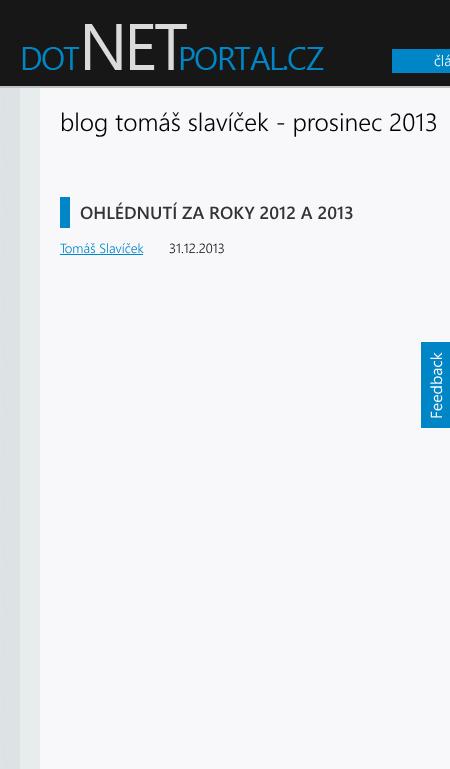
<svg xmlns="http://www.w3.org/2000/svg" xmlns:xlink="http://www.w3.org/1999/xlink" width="450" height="769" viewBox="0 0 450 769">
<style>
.cls-1{font:300 15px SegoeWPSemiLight;fill:#ffffff}
.cls-2{font:300 24.9px SegoeWPSemiLight;fill:#000000}
.cls-3{font:600 17.6px SegoeWPSemiLight;fill:#333333}
.cls-4{font:300 13.25px SegoeWPSemiLight;fill:#0086c6}
.cls-5{font:300 13.25px SegoeWPSemiLight;fill:#000000}
</style>
<rect width="100%" height="100%" fill="#f8f8fa"/>
<rect fill="#171717" x="0" y="0" width="450" height="86"/>
<rect fill="#c1c1c1" x="0" y="86" width="450" height="2"/>
<image xlink:href="image0.png" x="22" y="24" width="302" height="46"/>
<rect fill="#0086c6" x="392" y="49" width="58" height="24"/>
<image xlink:href="image1.png" x="0" y="88" width="40" height="681"/>
<rect fill="#0086c6" x="60" y="197" width="10" height="31"/>
<rect fill="#0086c6" x="60" y="254" width="83" height="1"/>
<image xlink:href="image2.png" x="420" y="341" width="30" height="88"/>
<text class="cls-1" x="434" y="66">člá</text>
<text class="cls-2" x="60" y="131">blog tomáš slavíček - prosinec 2013</text>
<text class="cls-3" x="80" y="219">OHLÉDNUTÍ ZA ROKY 2012 A 2013</text>
<text class="cls-4" x="60" y="253">Tomáš Slavíček</text>
<text class="cls-5" x="169" y="253">31.12.2013</text>
</svg>
